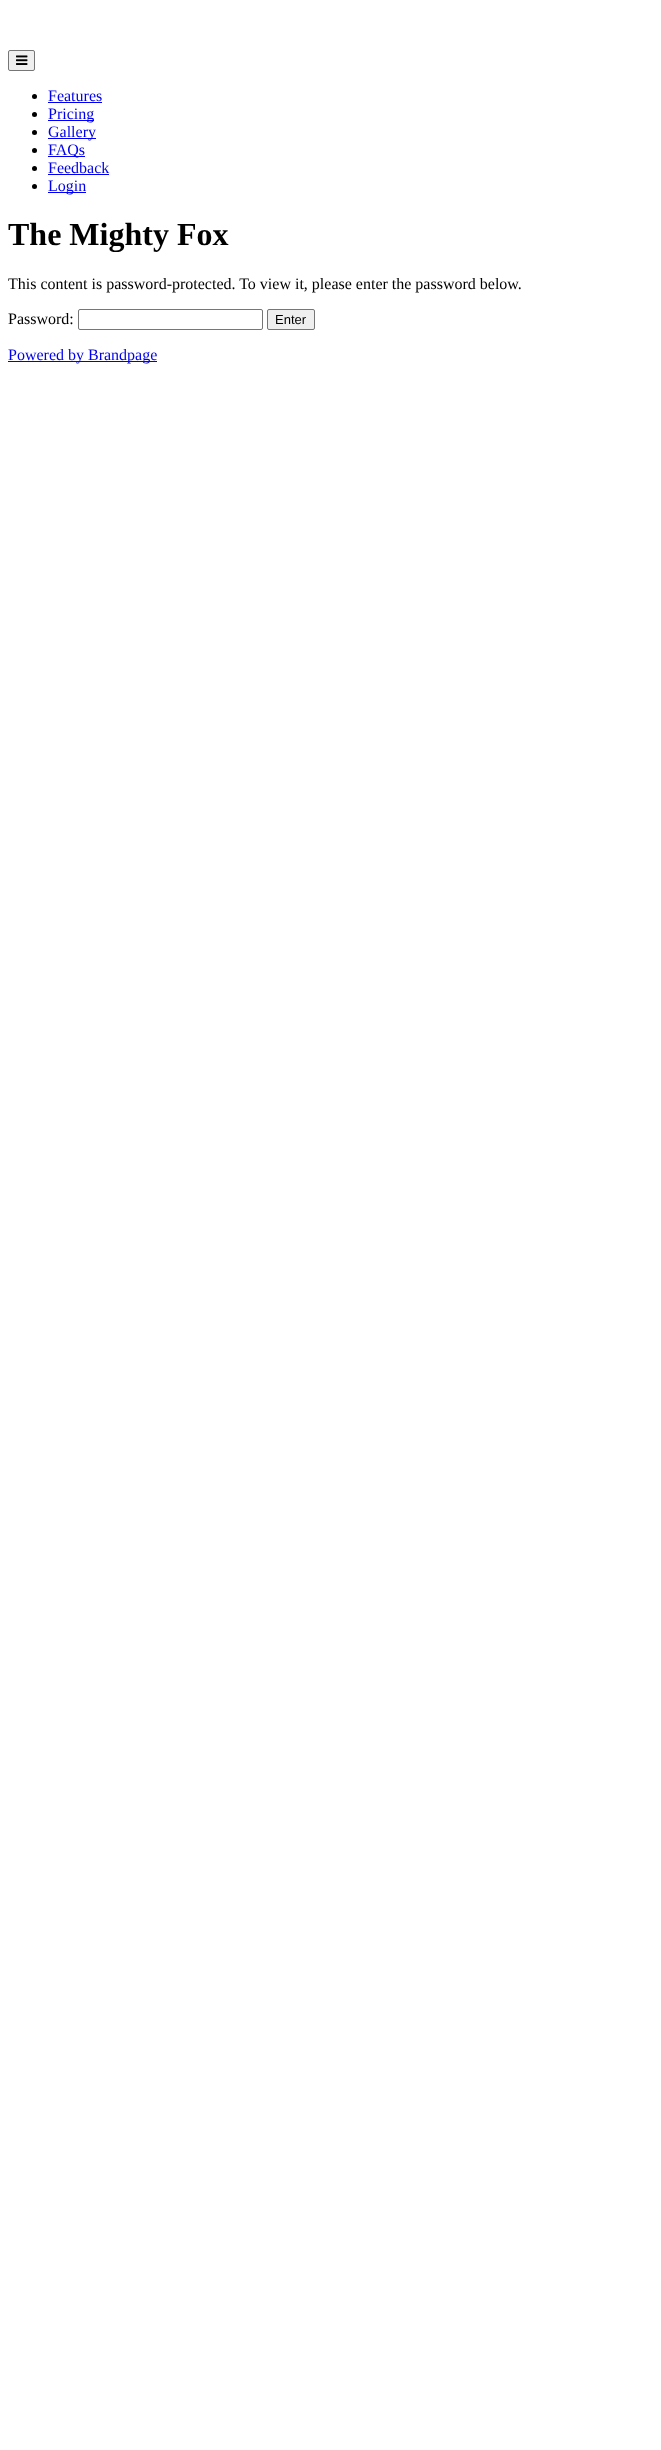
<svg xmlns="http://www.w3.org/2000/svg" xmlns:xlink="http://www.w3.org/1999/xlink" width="661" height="2450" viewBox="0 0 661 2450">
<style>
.cls-1{font:16px Liberation Serif;fill:#0000ee}
.cls-2{font:bold 32px Liberation Serif;fill:#000000}
.cls-3{font:16px Liberation Serif;fill:#000000}
.cls-4{font:13px Liberation Sans;fill:#000000}
</style>
<rect width="100%" height="100%" fill="#ffffff"/>
<rect fill="#efefef" stroke="#767676" x="8.5" y="50.5" width="26" height="20" rx="1.5"/>
<image xlink:href="image0.png" x="16" y="55" width="12" height="10"/>
<circle fill="#000000" cx="34.5" cy="96.5" r="2.5"/>
<rect fill="#0000ee" x="48" y="102" width="54" height="1"/>
<circle fill="#000000" cx="34.5" cy="114.5" r="2.5"/>
<rect fill="#0000ee" x="48" y="120" width="46" height="1"/>
<circle fill="#000000" cx="34.5" cy="132.5" r="2.5"/>
<rect fill="#0000ee" x="48" y="138" width="48" height="1"/>
<circle fill="#000000" cx="34.5" cy="150.5" r="2.5"/>
<rect fill="#0000ee" x="48" y="156" width="37" height="1"/>
<circle fill="#000000" cx="34.5" cy="168.5" r="2.5"/>
<rect fill="#0000ee" x="48" y="174" width="61" height="1"/>
<circle fill="#000000" cx="34.5" cy="186.5" r="2.5"/>
<rect fill="#0000ee" x="48" y="192" width="38" height="1"/>
<rect fill="none" stroke="#767676" x="78.5" y="309.5" width="184" height="20" rx="1.5"/>
<rect fill="#efefef" stroke="#767676" x="267.5" y="309.5" width="47" height="20" rx="1.5"/>
<rect fill="#0000ee" x="8" y="361" width="149" height="1"/>
<text class="cls-1"><tspan x="48" y="101">Features</tspan><tspan x="48" y="119">Pricing</tspan><tspan x="48" y="137">Gallery</tspan><tspan x="48" y="155">FAQs</tspan><tspan x="48" y="173">Feedback</tspan><tspan x="48" y="191">Login</tspan></text>
<text class="cls-2" x="8" y="245">The Mighty Fox</text>
<text class="cls-3" x="8" y="289">This content is password-protected. To view it, please enter the password below.</text>
<text class="cls-3" x="8" y="324">Password:</text>
<text class="cls-4" x="275" y="324">Enter</text>
<text class="cls-1" x="8" y="360">Powered by Brandpage</text>
</svg>
